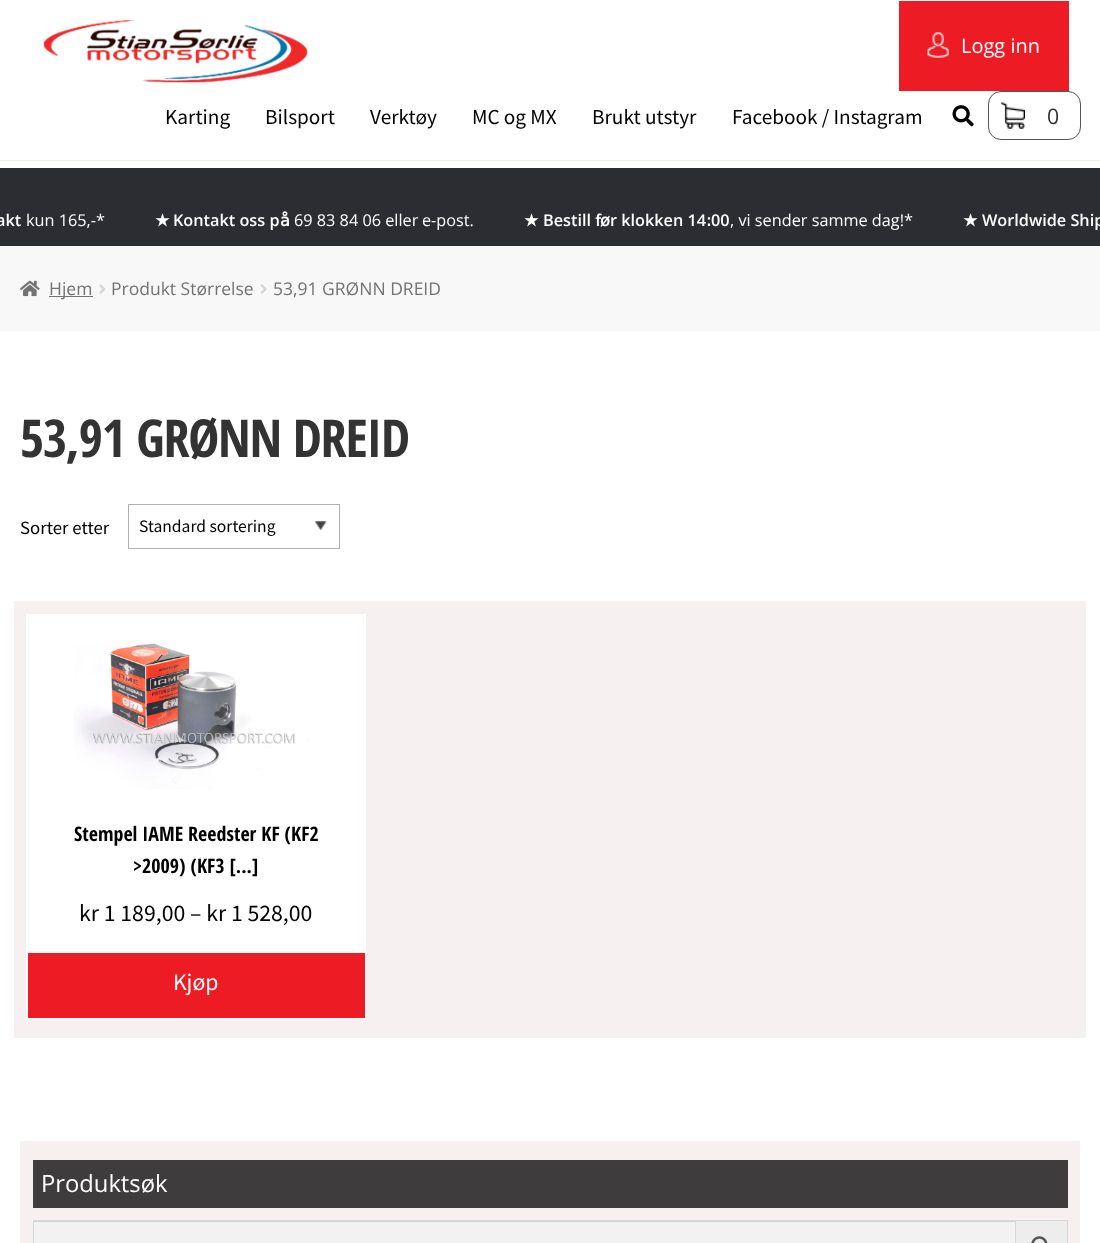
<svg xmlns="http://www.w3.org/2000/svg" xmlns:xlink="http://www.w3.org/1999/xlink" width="1100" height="1243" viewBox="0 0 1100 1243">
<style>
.cls-1{font:20px Open Sans;fill:#ffffff}
.cls-2{font:21.25px Source Sans Pro;fill:#000000}
.cls-3{font:21.25px Open Sans;fill:#333333}
.cls-4{font:600 16.25px Open Sans;fill:#ffffff}
.cls-5{font:16.25px Open Sans;fill:#ffffff}
.cls-6{font:bold 16.25px DejaVu Sans;fill:#ffffff}
.cls-7{font:17.5px Open Sans;fill:#727272}
.cls-8{font:bold 52.25px Open Sans Condensed;letter-spacing:-1.25px;fill:#333333}
.cls-9{font:18.75px Source Sans Pro;fill:#000000}
.cls-10{font:17.5px Source Sans Pro;fill:#000000}
.cls-11{font:bold 20px Open Sans Condensed;fill:#000000}
.cls-12{font:23.75px Source Sans Pro;fill:#000000}
.cls-13{font:23.75px Source Sans Pro;fill:#ffffff}
.cls-14{font:23.75px Open Sans;fill:#ffffff}
</style>
<rect width="100%" height="100%" fill="#ffffff"/>
<rect fill="#f0f0f0" x="0" y="160" width="1100" height="1"/>
<image xlink:href="image0.png" x="43" y="20" width="265" height="63"/>
<rect fill="#ed1c24" x="899" y="1" width="170" height="90"/>
<image xlink:href="image1.png" x="927" y="32" width="22" height="26"/>
<image xlink:href="image2.png" x="952" y="105" width="22" height="22"/>
<image xlink:href="image3.png" x="1001" y="102" width="24" height="27"/>
<rect fill="none" stroke="#555555" x="988.5" y="91.5" width="92" height="48" rx="12.5"/>
<rect fill="#2c2d33" x="0" y="168" width="1100" height="78"/>
<rect fill="#f8f8f8" x="0" y="246" width="1100" height="85"/>
<image xlink:href="image4.png" x="20" y="280" width="20" height="17"/>
<rect fill="#727272" x="49" y="296" width="44" height="1"/>
<image xlink:href="image5.png" x="99" y="284" width="7" height="10"/>
<image xlink:href="image6.png" x="260" y="284" width="7" height="10"/>
<image xlink:href="image7.png" x="315" y="521" width="12" height="9"/>
<rect fill="none" stroke="#b1b1b1" x="128.5" y="504.5" width="211" height="44"/>
<rect fill="#f6f0f0" x="14" y="601" width="1072" height="437"/>
<rect fill="#ffffff" x="26" y="614" width="340" height="405"/>
<image xlink:href="image8.png" x="74" y="643" width="234" height="146"/>
<rect fill="#ed1c24" x="28" y="953" width="337" height="65"/>
<rect fill="#f6f0f0" x="20" y="1141" width="1060" height="102"/>
<rect fill="#3e3c3c" x="33" y="1160" width="1035" height="48"/>
<rect fill="#f2f2f2" x="34" y="1222" width="981" height="21"/>
<rect fill="#d4d4d4" x="34" y="1221" width="981" height="1"/>
<rect fill="#ededed" stroke="#d8d8d8" x="1015.5" y="1220.5" width="52" height="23"/>
<rect fill="none" stroke="#d8d8d8" x="33.5" y="1220.5" width="982" height="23"/>
<image xlink:href="image9.png" x="1031" y="1236" width="17" height="7"/>
<text class="cls-1" x="961" y="53">Logg inn</text>
<text class="cls-2" x="165" y="124">Karting</text>
<text class="cls-2" x="265" y="124">Bilsport</text>
<text class="cls-2" x="370" y="124">Verktøy</text>
<text class="cls-2" x="472" y="124">MC og MX</text>
<text class="cls-2" x="592" y="124">Brukt utstyr</text>
<text class="cls-2" x="732" y="124">Facebook / Instagram</text>
<text class="cls-3" x="1047" y="124">0</text>
<text class="cls-4" x="-4" y="226">akt</text>
<text class="cls-5" x="26" y="226">kun 165,-*</text>
<text class="cls-6" x="155" y="226">★</text>
<text class="cls-4" x="173" y="226">Kontakt oss p</text>
<text class="cls-6" x="280" y="226">å</text>
<text class="cls-5" x="294" y="226">69 83 84 06 eller</text>
<text class="cls-5" x="422" y="226">e-post.</text>
<text class="cls-6" x="524" y="226">★</text>
<text class="cls-4" x="543" y="226">Bestill f</text>
<text class="cls-6" x="600" y="226">ø</text>
<text class="cls-4" x="610" y="226">r klokken 14</text>
<text class="cls-6" x="706" y="226">:</text>
<text class="cls-4" x="711" y="226">00</text>
<text class="cls-5" x="730" y="226">, vi sender samme dag!*</text>
<text class="cls-6" x="963" y="226">★</text>
<text class="cls-4" x="982" y="226">Worldwide Ship</text>
<text class="cls-7" x="49" y="295">Hjem</text>
<text class="cls-7" x="111" y="295">Produkt Størrelse</text>
<text class="cls-7" x="273" y="295">53,91 GRØNN DREID</text>
<text class="cls-8" x="20" y="457">53,91 GRØNN DREID</text>
<text class="cls-9" x="20" y="534">Sorter etter</text>
<text class="cls-10" x="139" y="532">Standard sortering</text>
<text class="cls-11" x="74" y="841">Stempel IAME Reedster KF (KF2</text>
<text class="cls-11" x="133" y="873">&gt;2009) (KF3 [...]</text>
<text class="cls-12" x="79" y="921">kr 1 189,00 – kr 1 528,00</text>
<text class="cls-13" x="173" y="990">Kjøp</text>
<text class="cls-14" x="41" y="1192">Produktsøk</text>
</svg>
